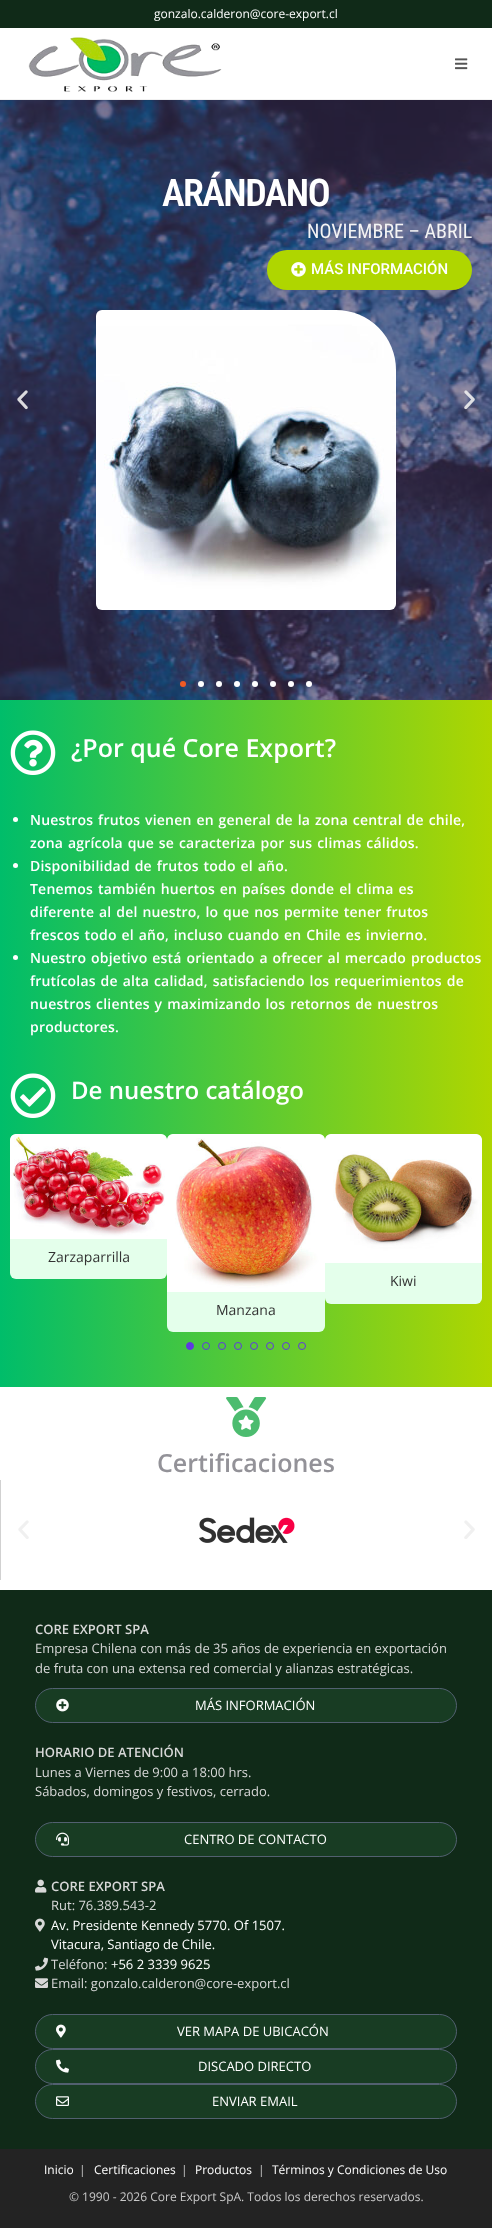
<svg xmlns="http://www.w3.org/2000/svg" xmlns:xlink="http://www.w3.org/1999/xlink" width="492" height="2237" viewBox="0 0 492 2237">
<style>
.cls-1{font:12px Open Sans;fill:#ffffff}
.cls-2{font:600 38px Roboto Condensed;letter-spacing:-1.5px;fill:#ffffff}
.cls-3{font:20px Roboto Condensed;fill:#f4f4f4}
.cls-4{font:500 15px Roboto;fill:#ffffff}
.cls-5{font:600 25px Open Sans;fill:#ffffff}
.cls-6{font:600 14px Open Sans;letter-spacing:0.2px;fill:#ffffff}
.cls-7{font:600 24px Open Sans;fill:#ffffff}
.cls-8{font:14px Open Sans;fill:#333333}
.cls-9{font:600 25px Open Sans;fill:#939298}
.cls-10{font:600 13px Open Sans;fill:#d8d8d8}
.cls-11{font:13px Open Sans;fill:#d8d8d8}
.cls-12{font:13px Open Sans;fill:#ffffff}
.cls-13{font:12px Open Sans;fill:#c9c9c9}
</style>
<defs>
<linearGradient id="g1" gradientUnits="userSpaceOnUse" x1="0" y1="1044" x2="492" y2="1044"><stop offset="0" stop-color="#00bd6a"/><stop offset="1" stop-color="#afd600"/></linearGradient>
</defs>
<rect width="100%" height="100%" fill="#ffffff"/>
<rect fill="#102a18" x="0" y="0" width="492" height="28"/>
<rect fill="#f1f1f1" x="0" y="99" width="492" height="1"/>
<image xlink:href="image0.png" x="28" y="37" width="194" height="55"/>
<image xlink:href="image1.png" x="455" y="58" width="13" height="12"/>
<image xlink:href="image2.png" x="0" y="100" width="492" height="600"/>
<rect fill="#afd600" x="267" y="250" width="205" height="40" rx="20"/>
<image xlink:href="image3.png" x="291" y="262" width="15" height="15"/>
<image xlink:href="image4.png" x="96" y="310" width="300" height="300"/>
<image xlink:href="image5.png" x="17" y="390" width="11" height="20"/>
<image xlink:href="image6.png" x="464" y="390" width="11" height="20"/>
<circle fill="#ee5b24" cx="183" cy="684" r="3"/>
<circle fill="#ffffff" cx="201" cy="684" r="3"/>
<circle fill="#ffffff" cx="219" cy="684" r="3"/>
<circle fill="#ffffff" cx="237" cy="684" r="3"/>
<circle fill="#ffffff" cx="255" cy="684" r="3"/>
<circle fill="#ffffff" cx="273" cy="684" r="3"/>
<circle fill="#ffffff" cx="291" cy="684" r="3"/>
<circle fill="#ffffff" cx="309" cy="684" r="3"/>
<rect fill="url(#g1)" x="0" y="700" width="492" height="687"/>
<image xlink:href="image7.png" x="10" y="730" width="46" height="45"/>
<circle fill="#ffffff" cx="15.5" cy="819.5" r="2.5"/>
<circle fill="#ffffff" cx="15.5" cy="865.5" r="2.5"/>
<circle fill="#ffffff" cx="15.5" cy="957.5" r="2.5"/>
<image xlink:href="image8.png" x="10" y="1073" width="46" height="45"/>
<rect fill="#e4ffeb" x="10" y="1134" width="157" height="145" rx="6"/>
<image xlink:href="image9.png" x="10" y="1134" width="157" height="105"/>
<rect fill="#e4ffeb" x="325" y="1134" width="157" height="170" rx="6"/>
<image xlink:href="image10.png" x="325" y="1134" width="157" height="129"/>
<rect fill="#e4ffeb" x="167" y="1134" width="158" height="198" rx="6"/>
<image xlink:href="image11.png" x="167" y="1134" width="158" height="158"/>
<circle fill="#5f3ae0" stroke="#5f3ae0" cx="190" cy="1346" r="3.5"/>
<circle fill="none" stroke="#5f3ae0" cx="206" cy="1346" r="3.5"/>
<circle fill="none" stroke="#5f3ae0" cx="222" cy="1346" r="3.5"/>
<circle fill="none" stroke="#5f3ae0" cx="238" cy="1346" r="3.5"/>
<circle fill="none" stroke="#5f3ae0" cx="254" cy="1346" r="3.5"/>
<circle fill="none" stroke="#5f3ae0" cx="270" cy="1346" r="3.5"/>
<circle fill="none" stroke="#5f3ae0" cx="286" cy="1346" r="3.5"/>
<circle fill="none" stroke="#5f3ae0" cx="302" cy="1346" r="3.5"/>
<image xlink:href="image12.png" x="226" y="1397" width="41" height="40"/>
<rect fill="#d1d1d1" x="0" y="1480" width="1" height="100"/>
<image xlink:href="image13.png" x="18" y="1520" width="11" height="19"/>
<image xlink:href="image14.png" x="199" y="1517" width="96" height="26"/>
<image xlink:href="image15.png" x="464" y="1520" width="11" height="19"/>
<rect fill="#102a18" x="0" y="1590" width="492" height="559"/>
<rect fill="#183c23" stroke="#526070" x="35.5" y="1688.5" width="421" height="34" rx="17"/>
<image xlink:href="image16.png" x="56" y="1698" width="13" height="14"/>
<rect fill="#183c23" stroke="#526070" x="35.5" y="1822.5" width="421" height="34" rx="17"/>
<image xlink:href="image17.png" x="56" y="1832" width="13" height="14"/>
<image xlink:href="image18.png" x="35" y="1879" width="12" height="14"/>
<image xlink:href="image19.png" x="35" y="1918" width="10" height="14"/>
<image xlink:href="image20.png" x="35" y="1957" width="13" height="14"/>
<image xlink:href="image21.png" x="35" y="1978" width="13" height="10"/>
<rect fill="#183c23" stroke="#526070" x="35.5" y="2014.5" width="421" height="34" rx="17"/>
<image xlink:href="image22.png" x="56" y="2024" width="10" height="14"/>
<rect fill="#183c23" stroke="#526070" x="35.5" y="2049.5" width="421" height="34" rx="17"/>
<image xlink:href="image23.png" x="56" y="2059" width="13" height="14"/>
<rect fill="#183c23" stroke="#526070" x="35.5" y="2084.5" width="421" height="34" rx="17"/>
<image xlink:href="image24.png" x="56" y="2096" width="13" height="10"/>
<rect fill="#232323" x="0" y="2149" width="492" height="79"/>
<text class="cls-1" x="154" y="18">gonzalo.calderon@core-export.cl</text>
<text class="cls-2" x="162" y="206">ARÁNDANO</text>
<text class="cls-3" x="307" y="238">NOVIEMBRE – ABRIL</text>
<text class="cls-4" x="311" y="274">MÁS INFORMACIÓN</text>
<text class="cls-5" x="71" y="757">¿Por qué Core Export?</text>
<text class="cls-6"><tspan x="30" y="825" word-spacing="1">Nuestros frutos vienen en general de la zona central de chile,</tspan><tspan x="30" y="848" word-spacing="1">zona agrícola que se caracteriza por sus climas cálidos.</tspan><tspan x="30" y="871" word-spacing="1">Disponibilidad de frutos todo el año.</tspan><tspan x="30" y="894" word-spacing="1">Tenemos también huertos en países donde el clima es</tspan><tspan x="30" y="917" word-spacing="1">diferente al del nuestro, lo que nos permite tener frutos</tspan><tspan x="30" y="940" word-spacing="1">frescos todo el año, incluso cuando en Chile es invierno.</tspan><tspan x="30" y="963" word-spacing="1">Nuestro objetivo está orientado a ofrecer al mercado productos</tspan><tspan x="30" y="986" word-spacing="1">frutícolas de alta calidad, satisfaciendo los requerimientos de</tspan><tspan x="30" y="1009" word-spacing="1">nuestros clientes y maximizando los retornos de nuestros</tspan><tspan x="30" y="1032">productores.</tspan></text>
<text class="cls-7" x="71" y="1099">De nuestro catálogo</text>
<text class="cls-8" x="48" y="1262">Zarzaparrilla</text>
<text class="cls-8" x="390" y="1286">Kiwi</text>
<text class="cls-8" x="216" y="1315">Manzana</text>
<text class="cls-9" x="157" y="1472">Certificaciones</text>
<text class="cls-10" x="35" y="1634">CORE EXPORT SPA</text>
<text class="cls-11"><tspan x="35" y="1653">Empresa Chilena con más de 35 años de experiencia en exportación</tspan><tspan x="35" y="1673">de fruta con una extensa red comercial y alianzas estratégicas.</tspan></text>
<text class="cls-12" x="195" y="1710">MÁS INFORMACIÓN</text>
<text class="cls-10" x="35" y="1757">HORARIO DE ATENCIÓN</text>
<text class="cls-11"><tspan x="35" y="1777">Lunes a Viernes de 9:00 a 18:00 hrs.</tspan><tspan x="35" y="1796">Sábados, domingos y festivos, cerrado.</tspan></text>
<text class="cls-12" x="184" y="1844">CENTRO DE CONTACTO</text>
<text class="cls-10" x="51" y="1891">CORE EXPORT SPA</text>
<text class="cls-11" x="51" y="1910">Rut: 76.389.543-2</text>
<text class="cls-12"><tspan x="51" y="1930">Av. Presidente Kennedy 5770. Of 1507.</tspan><tspan x="51" y="1949">Vitacura, Santiago de Chile.</tspan></text>
<text class="cls-11" x="51" y="1969">Teléfono:</text>
<text class="cls-12" x="111" y="1969">+56 2 3339 9625</text>
<text class="cls-11" x="51" y="1988">Email: gonzalo.calderon@core-export.cl</text>
<text class="cls-12" x="177" y="2036">VER MAPA DE UBICACÓN</text>
<text class="cls-12" x="198" y="2071">DISCADO DIRECTO</text>
<text class="cls-12" x="212" y="2106">ENVIAR EMAIL</text>
<text class="cls-1" x="44" y="2174">Inicio</text>
<text class="cls-13" x="79" y="2174">|</text>
<text class="cls-1" x="94" y="2174">Certificaciones</text>
<text class="cls-13" x="181" y="2174">|</text>
<text class="cls-1" x="195" y="2174">Productos</text>
<text class="cls-13" x="258" y="2174">|</text>
<text class="cls-1" x="272" y="2174">Términos y Condiciones de Uso</text>
<text class="cls-13" x="69" y="2201">© 1990 - 2026 Core Export SpA. Todos los derechos reservados.</text>
</svg>
